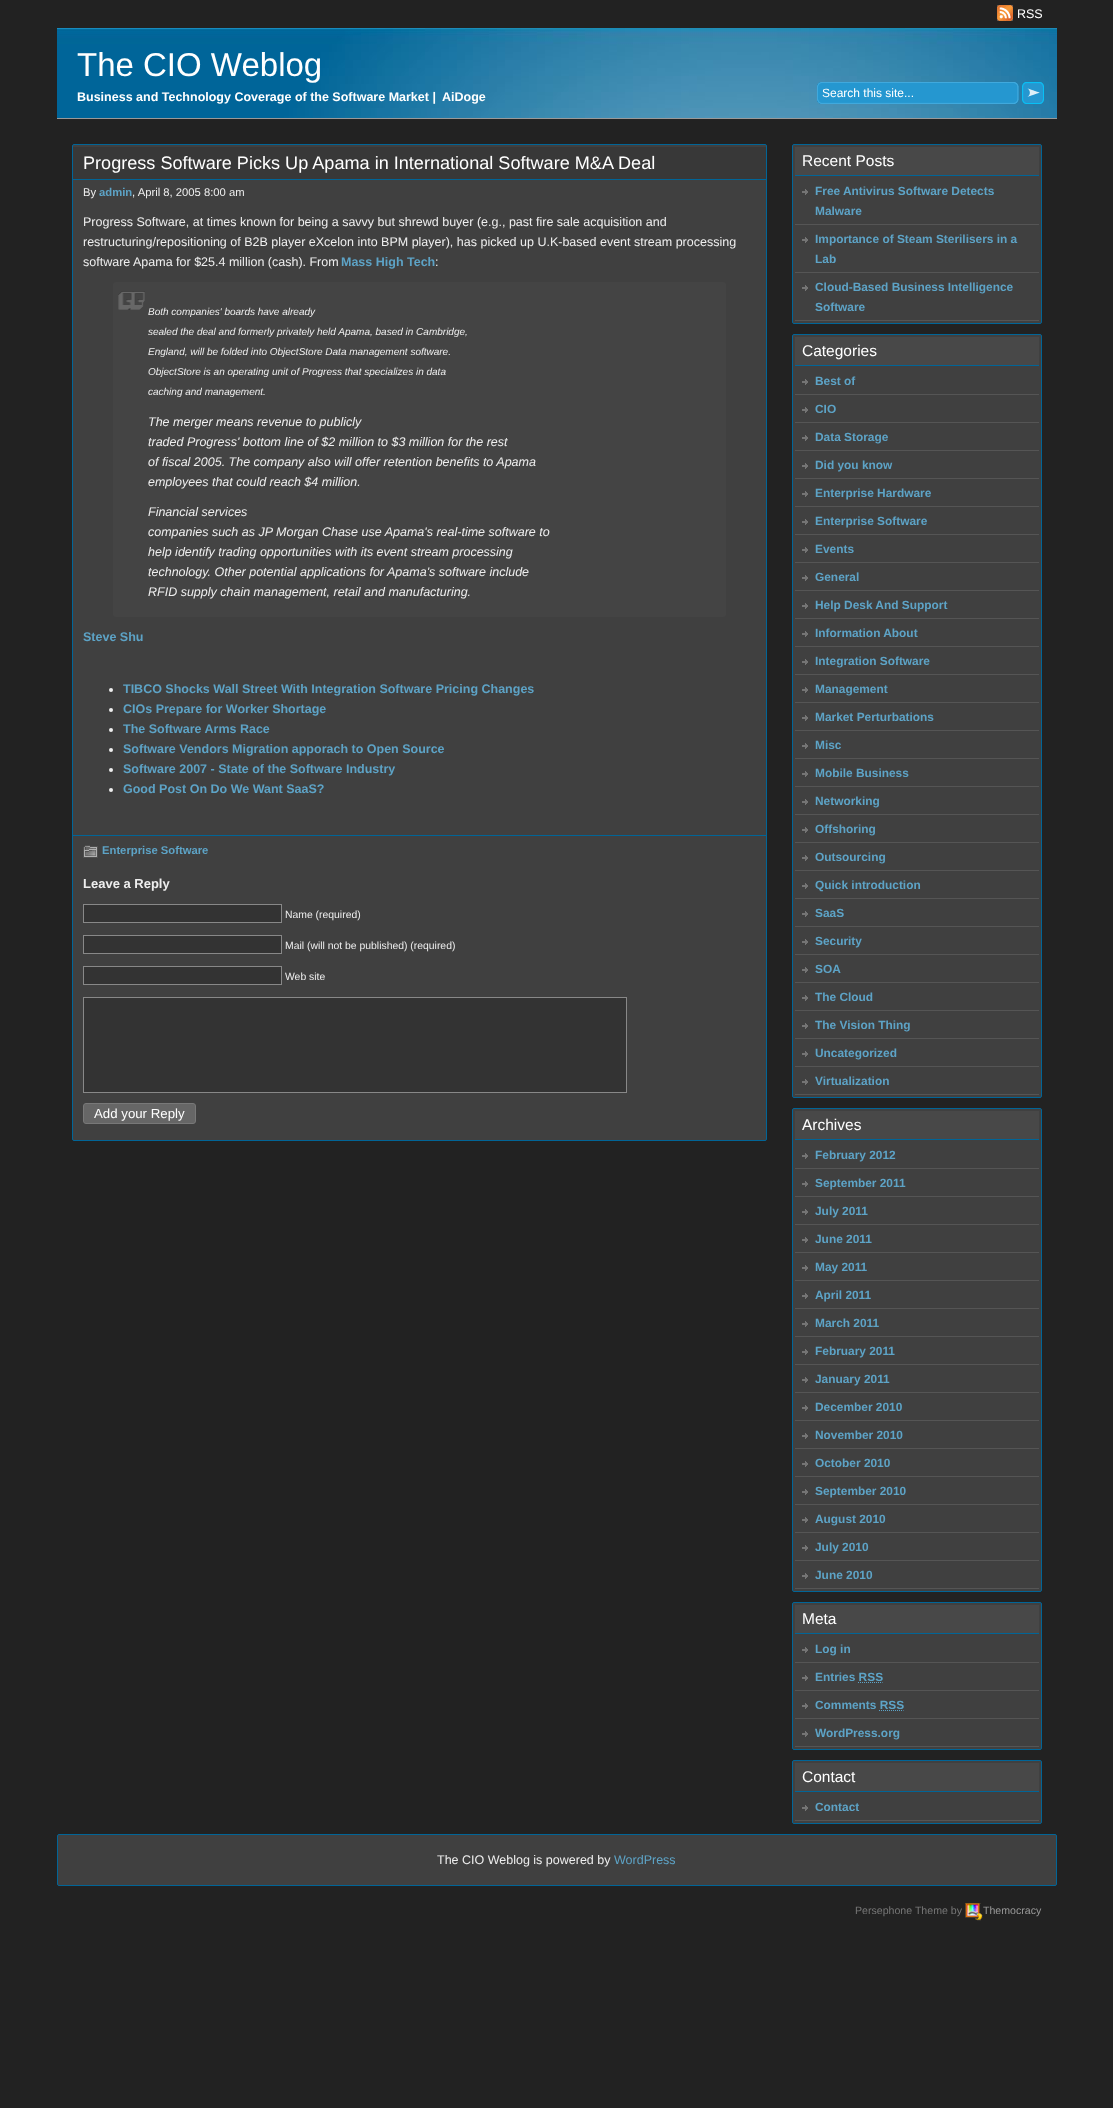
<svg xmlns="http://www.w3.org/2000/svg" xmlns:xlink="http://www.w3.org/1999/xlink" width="1113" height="2108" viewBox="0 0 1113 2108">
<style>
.cls-1{font:12.5px Liberation Sans;fill:#ffffff}
.cls-2{font:33px Liberation Sans;fill:#ffffff}
.cls-3{font:bold 12.5px Liberation Sans;fill:#ffffff}
.cls-4{font:12px Liberation Sans;fill:#ffffff}
.cls-5{font:18.1px Liberation Sans;fill:#ffffff}
.cls-6{font:11.25px Liberation Sans;fill:#eeeeee}
.cls-7{font:bold 11.25px Liberation Sans;fill:#5da3c6}
.cls-8{font:12.5px Liberation Sans;fill:#eeeeee}
.cls-9{font:bold 12.5px Liberation Sans;fill:#5da3c6}
.cls-10{font:italic 10px Liberation Sans;fill:#eeeeee}
.cls-11{font:italic 12.5px Liberation Sans;fill:#eeeeee}
.cls-12{font:bold 13px Liberation Sans;fill:#eeeeee}
.cls-13{font:10.4px Liberation Sans;fill:#eeeeee}
.cls-14{font:13.25px Liberation Sans;fill:#ffffff}
.cls-15{font:15.5px Liberation Sans;fill:#ffffff}
.cls-16{font:bold 11.9px Liberation Sans;fill:#5da3c6}
.cls-17{font:12.5px Liberation Sans;fill:#5da3c6}
.cls-18{font:10.6px Liberation Sans;fill:#777777}
.cls-19{font:10.6px Liberation Sans;fill:#999999}
</style>
<rect width="100%" height="100%" fill="#222222"/>
<image xlink:href="image0.png" x="997" y="5" width="16" height="16"/>
<image xlink:href="image1.png" x="57" y="28" width="1000" height="90"/>
<image xlink:href="image2.png" x="817" y="82" width="202" height="22"/>
<image xlink:href="image3.png" x="1022" y="82" width="22" height="22"/>
<rect fill="#999999" x="57" y="118" width="1000" height="1"/>
<rect fill="#404040" stroke="#016597" x="72.5" y="144.5" width="694" height="996" rx="1.5"/>
<rect fill="#383838" x="73" y="147" width="693" height="32"/>
<rect fill="#016597" x="73" y="179" width="693" height="1"/>
<rect fill="#444444" x="113" y="282" width="613" height="335" rx="3"/>
<image xlink:href="image4.png" x="118" y="291" width="27" height="19"/>
<circle fill="#eeeeee" cx="111" cy="690" r="2"/>
<circle fill="#eeeeee" cx="111" cy="710" r="2"/>
<circle fill="#eeeeee" cx="111" cy="730" r="2"/>
<circle fill="#eeeeee" cx="111" cy="750" r="2"/>
<circle fill="#eeeeee" cx="111" cy="770" r="2"/>
<circle fill="#eeeeee" cx="111" cy="790" r="2"/>
<rect fill="#016597" x="73" y="835" width="693" height="1"/>
<image xlink:href="image5.png" x="83" y="845" width="15" height="13"/>
<rect fill="#333333" stroke="#888888" x="83.5" y="904.5" width="198" height="18"/>
<rect fill="#333333" stroke="#888888" x="83.5" y="935.5" width="198" height="18"/>
<rect fill="#333333" stroke="#888888" x="83.5" y="966.5" width="198" height="18"/>
<rect fill="#333333" stroke="#888888" x="83.5" y="997.5" width="543" height="95"/>
<rect fill="#666666" stroke="#787878" x="83.5" y="1103.5" width="112" height="20" rx="2.5"/>
<rect fill="#404040" stroke="#016597" x="792.5" y="144.5" width="249" height="179" rx="1.5"/>
<rect fill="#484848" x="795" y="147" width="244" height="28"/>
<rect fill="#016597" x="795" y="175" width="244" height="1"/>
<image xlink:href="image6.png" x="802" y="189" width="6" height="6"/>
<rect fill="#555555" x="795" y="224" width="244" height="1"/>
<image xlink:href="image6.png" x="802" y="237" width="6" height="6"/>
<rect fill="#555555" x="795" y="272" width="244" height="1"/>
<image xlink:href="image6.png" x="802" y="285" width="6" height="6"/>
<rect fill="#555555" x="795" y="320" width="244" height="1"/>
<rect fill="#404040" stroke="#016597" x="792.5" y="334.5" width="249" height="763" rx="1.5"/>
<rect fill="#484848" x="795" y="337" width="244" height="28"/>
<rect fill="#016597" x="795" y="365" width="244" height="1"/>
<image xlink:href="image6.png" x="802" y="379" width="6" height="6"/>
<rect fill="#555555" x="795" y="394" width="244" height="1"/>
<image xlink:href="image6.png" x="802" y="407" width="6" height="6"/>
<rect fill="#555555" x="795" y="422" width="244" height="1"/>
<image xlink:href="image6.png" x="802" y="435" width="6" height="6"/>
<rect fill="#555555" x="795" y="450" width="244" height="1"/>
<image xlink:href="image6.png" x="802" y="463" width="6" height="6"/>
<rect fill="#555555" x="795" y="478" width="244" height="1"/>
<image xlink:href="image6.png" x="802" y="491" width="6" height="6"/>
<rect fill="#555555" x="795" y="506" width="244" height="1"/>
<image xlink:href="image6.png" x="802" y="519" width="6" height="6"/>
<rect fill="#555555" x="795" y="534" width="244" height="1"/>
<image xlink:href="image6.png" x="802" y="547" width="6" height="6"/>
<rect fill="#555555" x="795" y="562" width="244" height="1"/>
<image xlink:href="image6.png" x="802" y="575" width="6" height="6"/>
<rect fill="#555555" x="795" y="590" width="244" height="1"/>
<image xlink:href="image6.png" x="802" y="603" width="6" height="6"/>
<rect fill="#555555" x="795" y="618" width="244" height="1"/>
<image xlink:href="image6.png" x="802" y="631" width="6" height="6"/>
<rect fill="#555555" x="795" y="646" width="244" height="1"/>
<image xlink:href="image6.png" x="802" y="659" width="6" height="6"/>
<rect fill="#555555" x="795" y="674" width="244" height="1"/>
<image xlink:href="image6.png" x="802" y="687" width="6" height="6"/>
<rect fill="#555555" x="795" y="702" width="244" height="1"/>
<image xlink:href="image6.png" x="802" y="715" width="6" height="6"/>
<rect fill="#555555" x="795" y="730" width="244" height="1"/>
<image xlink:href="image6.png" x="802" y="743" width="6" height="6"/>
<rect fill="#555555" x="795" y="758" width="244" height="1"/>
<image xlink:href="image6.png" x="802" y="771" width="6" height="6"/>
<rect fill="#555555" x="795" y="786" width="244" height="1"/>
<image xlink:href="image6.png" x="802" y="799" width="6" height="6"/>
<rect fill="#555555" x="795" y="814" width="244" height="1"/>
<image xlink:href="image6.png" x="802" y="827" width="6" height="6"/>
<rect fill="#555555" x="795" y="842" width="244" height="1"/>
<image xlink:href="image6.png" x="802" y="855" width="6" height="6"/>
<rect fill="#555555" x="795" y="870" width="244" height="1"/>
<image xlink:href="image6.png" x="802" y="883" width="6" height="6"/>
<rect fill="#555555" x="795" y="898" width="244" height="1"/>
<image xlink:href="image6.png" x="802" y="911" width="6" height="6"/>
<rect fill="#555555" x="795" y="926" width="244" height="1"/>
<image xlink:href="image6.png" x="802" y="939" width="6" height="6"/>
<rect fill="#555555" x="795" y="954" width="244" height="1"/>
<image xlink:href="image6.png" x="802" y="967" width="6" height="6"/>
<rect fill="#555555" x="795" y="982" width="244" height="1"/>
<image xlink:href="image6.png" x="802" y="995" width="6" height="6"/>
<rect fill="#555555" x="795" y="1010" width="244" height="1"/>
<image xlink:href="image6.png" x="802" y="1023" width="6" height="6"/>
<rect fill="#555555" x="795" y="1038" width="244" height="1"/>
<image xlink:href="image6.png" x="802" y="1051" width="6" height="6"/>
<rect fill="#555555" x="795" y="1066" width="244" height="1"/>
<image xlink:href="image6.png" x="802" y="1079" width="6" height="6"/>
<rect fill="#555555" x="795" y="1094" width="244" height="1"/>
<rect fill="#404040" stroke="#016597" x="792.5" y="1108.5" width="249" height="483" rx="1.5"/>
<rect fill="#484848" x="795" y="1111" width="244" height="28"/>
<rect fill="#016597" x="795" y="1139" width="244" height="1"/>
<image xlink:href="image6.png" x="802" y="1153" width="6" height="6"/>
<rect fill="#555555" x="795" y="1168" width="244" height="1"/>
<image xlink:href="image6.png" x="802" y="1181" width="6" height="6"/>
<rect fill="#555555" x="795" y="1196" width="244" height="1"/>
<image xlink:href="image6.png" x="802" y="1209" width="6" height="6"/>
<rect fill="#555555" x="795" y="1224" width="244" height="1"/>
<image xlink:href="image6.png" x="802" y="1237" width="6" height="6"/>
<rect fill="#555555" x="795" y="1252" width="244" height="1"/>
<image xlink:href="image6.png" x="802" y="1265" width="6" height="6"/>
<rect fill="#555555" x="795" y="1280" width="244" height="1"/>
<image xlink:href="image6.png" x="802" y="1293" width="6" height="6"/>
<rect fill="#555555" x="795" y="1308" width="244" height="1"/>
<image xlink:href="image6.png" x="802" y="1321" width="6" height="6"/>
<rect fill="#555555" x="795" y="1336" width="244" height="1"/>
<image xlink:href="image6.png" x="802" y="1349" width="6" height="6"/>
<rect fill="#555555" x="795" y="1364" width="244" height="1"/>
<image xlink:href="image6.png" x="802" y="1377" width="6" height="6"/>
<rect fill="#555555" x="795" y="1392" width="244" height="1"/>
<image xlink:href="image6.png" x="802" y="1405" width="6" height="6"/>
<rect fill="#555555" x="795" y="1420" width="244" height="1"/>
<image xlink:href="image6.png" x="802" y="1433" width="6" height="6"/>
<rect fill="#555555" x="795" y="1448" width="244" height="1"/>
<image xlink:href="image6.png" x="802" y="1461" width="6" height="6"/>
<rect fill="#555555" x="795" y="1476" width="244" height="1"/>
<image xlink:href="image6.png" x="802" y="1489" width="6" height="6"/>
<rect fill="#555555" x="795" y="1504" width="244" height="1"/>
<image xlink:href="image6.png" x="802" y="1517" width="6" height="6"/>
<rect fill="#555555" x="795" y="1532" width="244" height="1"/>
<image xlink:href="image6.png" x="802" y="1545" width="6" height="6"/>
<rect fill="#555555" x="795" y="1560" width="244" height="1"/>
<image xlink:href="image6.png" x="802" y="1573" width="6" height="6"/>
<rect fill="#555555" x="795" y="1588" width="244" height="1"/>
<rect fill="#404040" stroke="#016597" x="792.5" y="1602.5" width="249" height="147" rx="1.5"/>
<rect fill="#484848" x="795" y="1605" width="244" height="28"/>
<rect fill="#016597" x="795" y="1633" width="244" height="1"/>
<image xlink:href="image6.png" x="802" y="1647" width="6" height="6"/>
<rect fill="#555555" x="795" y="1662" width="244" height="1"/>
<image xlink:href="image6.png" x="802" y="1675" width="6" height="6"/>
<rect fill="#555555" x="795" y="1690" width="244" height="1"/>
<path fill="none" stroke="#5da3c6" stroke-dasharray="1 1" d="M858 1682.5H882.5"/>
<image xlink:href="image6.png" x="802" y="1703" width="6" height="6"/>
<rect fill="#555555" x="795" y="1718" width="244" height="1"/>
<path fill="none" stroke="#5da3c6" stroke-dasharray="1 1" d="M879 1710.5H903.5"/>
<image xlink:href="image6.png" x="802" y="1731" width="6" height="6"/>
<rect fill="#555555" x="795" y="1746" width="244" height="1"/>
<rect fill="#404040" stroke="#016597" x="792.5" y="1760.5" width="249" height="63" rx="1.5"/>
<rect fill="#484848" x="795" y="1763" width="244" height="28"/>
<rect fill="#016597" x="795" y="1791" width="244" height="1"/>
<image xlink:href="image6.png" x="802" y="1805" width="6" height="6"/>
<rect fill="#555555" x="795" y="1820" width="244" height="1"/>
<rect fill="#404040" stroke="#016597" x="57.5" y="1834.5" width="999" height="51" rx="1.5"/>
<image xlink:href="image7.png" x="965" y="1903" width="18" height="18"/>
<text class="cls-1" x="1017" y="18">RSS</text>
<text class="cls-2" x="77" y="76">The CIO Weblog</text>
<text class="cls-3" x="77" y="101">Business and Technology Coverage of the Software Market |</text>
<text class="cls-3" x="442" y="101">AiDoge</text>
<text class="cls-4" x="822" y="97">Search this site...</text>
<text class="cls-5" x="83" y="169">Progress Software Picks Up Apama in International Software M&amp;A Deal</text>
<text class="cls-6" x="83" y="196">By</text>
<text class="cls-7" x="99" y="196">admin</text>
<text class="cls-6" x="132" y="196">, April 8, 2005 8:00 am</text>
<text class="cls-8"><tspan x="83" y="226">Progress Software, at times known for being a savvy but shrewd buyer (e.g., past fire sale acquisition and</tspan><tspan x="83" y="246">restructuring/repositioning of B2B player eXcelon into BPM player), has picked up U.K-based event stream processing</tspan><tspan x="83" y="266">software Apama for $25.4 million (cash). From</tspan></text>
<text class="cls-9" x="341" y="266">Mass High Tech</text>
<text class="cls-8" x="435" y="266">:</text>
<text class="cls-10" x="148" y="315">Both companies' boards have already</text>
<text class="cls-10" x="148" y="335">sealed the deal and formerly privately held Apama, based in Cambridge,</text>
<text class="cls-10" x="148" y="355">England, will be folded into ObjectStore Data management software.</text>
<text class="cls-10" x="148" y="375">ObjectStore is an operating unit of Progress that specializes in data</text>
<text class="cls-10" x="148" y="395">caching and management.</text>
<text class="cls-11"><tspan x="148" y="426">The merger means revenue to publicly</tspan><tspan x="148" y="446">traded Progress' bottom line of $2 million to $3 million for the rest</tspan><tspan x="148" y="466">of fiscal 2005. The company also will offer retention benefits to Apama</tspan><tspan x="148" y="486">employees that could reach $4 million.</tspan></text>
<text class="cls-11"><tspan x="148" y="516">Financial services</tspan><tspan x="148" y="536">companies such as JP Morgan Chase use Apama's real-time software to</tspan><tspan x="148" y="556">help identify trading opportunities with its event stream processing</tspan><tspan x="148" y="576">technology. Other potential applications for Apama's software include</tspan><tspan x="148" y="596">RFID supply chain management, retail and manufacturing.</tspan></text>
<text class="cls-9" x="83" y="641">Steve Shu</text>
<text class="cls-9"><tspan x="123" y="693">TIBCO Shocks Wall Street With Integration Software Pricing Changes</tspan><tspan x="123" y="713">CIOs Prepare for Worker Shortage</tspan><tspan x="123" y="733">The Software Arms Race</tspan><tspan x="123" y="753">Software Vendors Migration apporach to Open Source</tspan><tspan x="123" y="773">Software 2007 - State of the Software Industry</tspan><tspan x="123" y="793">Good Post On Do We Want SaaS?</tspan></text>
<text class="cls-7" x="102" y="854">Enterprise Software</text>
<text class="cls-12" x="83" y="888">Leave a Reply</text>
<text class="cls-13" x="285" y="918">Name (required)</text>
<text class="cls-13" x="285" y="949">Mail (will not be published) (required)</text>
<text class="cls-13" x="285" y="980">Web site</text>
<text class="cls-14" x="94" y="1118">Add your Reply</text>
<text class="cls-15" x="802" y="166">Recent Posts</text>
<text class="cls-16"><tspan x="815" y="195">Free Antivirus Software Detects</tspan><tspan x="815" y="215">Malware</tspan></text>
<text class="cls-16"><tspan x="815" y="243">Importance of Steam Sterilisers in a</tspan><tspan x="815" y="263">Lab</tspan></text>
<text class="cls-16"><tspan x="815" y="291">Cloud-Based Business Intelligence</tspan><tspan x="815" y="311">Software</tspan></text>
<text class="cls-15" x="802" y="356">Categories</text>
<text class="cls-16" x="815" y="385">Best of</text>
<text class="cls-16" x="815" y="413">CIO</text>
<text class="cls-16" x="815" y="441">Data Storage</text>
<text class="cls-16" x="815" y="469">Did you know</text>
<text class="cls-16" x="815" y="497">Enterprise Hardware</text>
<text class="cls-16" x="815" y="525">Enterprise Software</text>
<text class="cls-16" x="815" y="553">Events</text>
<text class="cls-16" x="815" y="581">General</text>
<text class="cls-16" x="815" y="609">Help Desk And Support</text>
<text class="cls-16" x="815" y="637">Information About</text>
<text class="cls-16" x="815" y="665">Integration Software</text>
<text class="cls-16" x="815" y="693">Management</text>
<text class="cls-16" x="815" y="721">Market Perturbations</text>
<text class="cls-16" x="815" y="749">Misc</text>
<text class="cls-16" x="815" y="777">Mobile Business</text>
<text class="cls-16" x="815" y="805">Networking</text>
<text class="cls-16" x="815" y="833">Offshoring</text>
<text class="cls-16" x="815" y="861">Outsourcing</text>
<text class="cls-16" x="815" y="889">Quick introduction</text>
<text class="cls-16" x="815" y="917">SaaS</text>
<text class="cls-16" x="815" y="945">Security</text>
<text class="cls-16" x="815" y="973">SOA</text>
<text class="cls-16" x="815" y="1001">The Cloud</text>
<text class="cls-16" x="815" y="1029">The Vision Thing</text>
<text class="cls-16" x="815" y="1057">Uncategorized</text>
<text class="cls-16" x="815" y="1085">Virtualization</text>
<text class="cls-15" x="802" y="1130">Archives</text>
<text class="cls-16" x="815" y="1159">February 2012</text>
<text class="cls-16" x="815" y="1187">September 2011</text>
<text class="cls-16" x="815" y="1215">July 2011</text>
<text class="cls-16" x="815" y="1243">June 2011</text>
<text class="cls-16" x="815" y="1271">May 2011</text>
<text class="cls-16" x="815" y="1299">April 2011</text>
<text class="cls-16" x="815" y="1327">March 2011</text>
<text class="cls-16" x="815" y="1355">February 2011</text>
<text class="cls-16" x="815" y="1383">January 2011</text>
<text class="cls-16" x="815" y="1411">December 2010</text>
<text class="cls-16" x="815" y="1439">November 2010</text>
<text class="cls-16" x="815" y="1467">October 2010</text>
<text class="cls-16" x="815" y="1495">September 2010</text>
<text class="cls-16" x="815" y="1523">August 2010</text>
<text class="cls-16" x="815" y="1551">July 2010</text>
<text class="cls-16" x="815" y="1579">June 2010</text>
<text class="cls-15" x="802" y="1624">Meta</text>
<text class="cls-16" x="815" y="1653">Log in</text>
<text class="cls-16" x="815" y="1681">Entries RSS</text>
<text class="cls-16" x="815" y="1709">Comments RSS</text>
<text class="cls-16" x="815" y="1737">WordPress.org</text>
<text class="cls-15" x="802" y="1782">Contact</text>
<text class="cls-16" x="815" y="1811">Contact</text>
<text class="cls-8" x="437" y="1864">The CIO Weblog is powered by</text>
<text class="cls-17" x="614" y="1864">WordPress</text>
<text class="cls-18" x="855" y="1914">Persephone Theme by</text>
<text class="cls-19" x="983" y="1914">Themocracy</text>
</svg>
